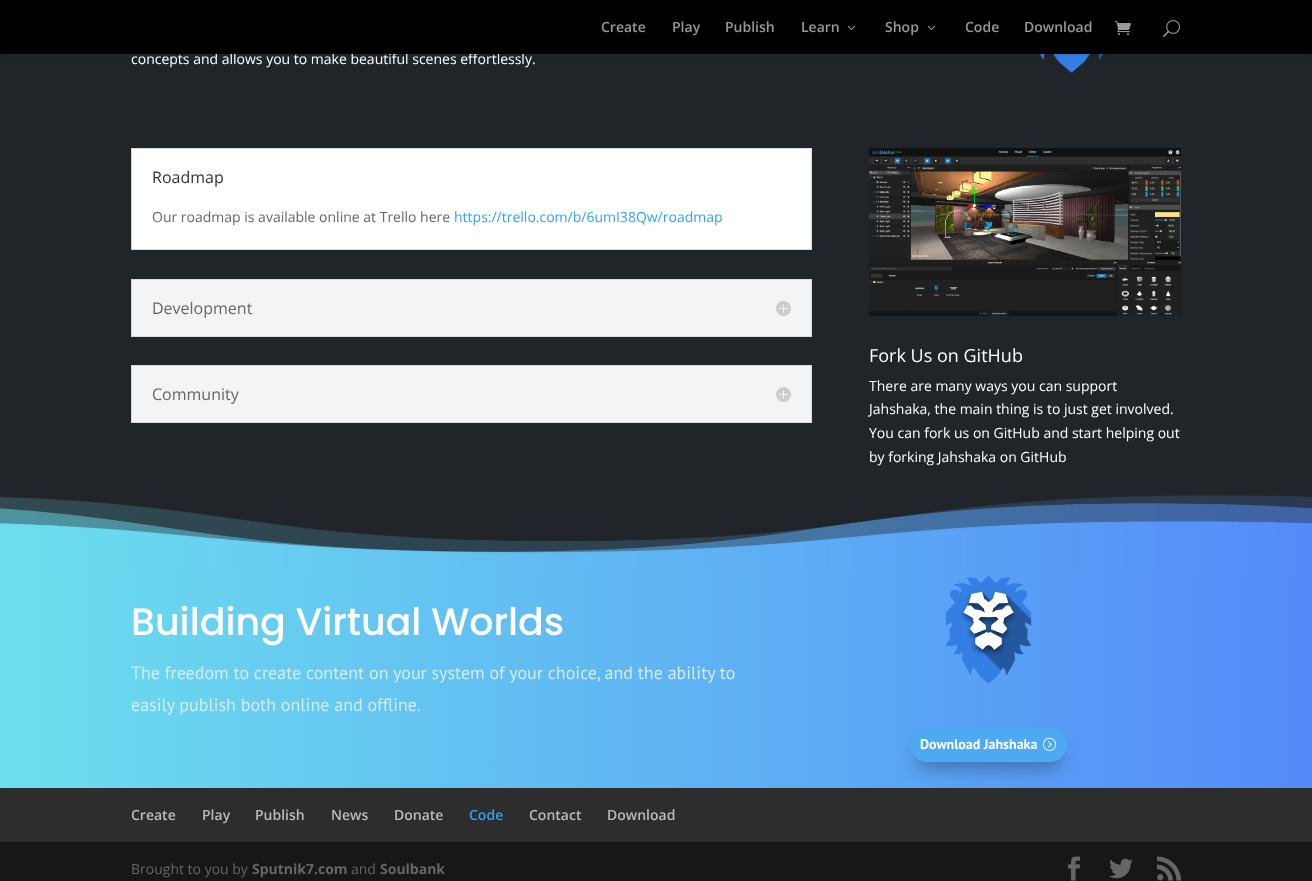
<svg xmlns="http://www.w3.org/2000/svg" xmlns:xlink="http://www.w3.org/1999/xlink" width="1312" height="881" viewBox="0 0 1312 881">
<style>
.cls-1{font:14px Open Sans;fill:#ffffff}
.cls-2{font:600 14px Open Sans;fill:#999999}
.cls-3{font:16px Open Sans;fill:#333333}
.cls-4{font:14px Open Sans;fill:#666666}
.cls-5{font:14px Open Sans;fill:#2ea3f2}
.cls-6{font:16px Open Sans;fill:#666666}
.cls-7{font:18px Open Sans;fill:#ffffff}
.cls-8{font:500 38px Poppins;fill:#ffffff}
.cls-9{font:18px PT Sans;fill:#d0edfb}
.cls-10{font:bold 14px PT Sans;fill:#ffffff}
.cls-11{font:600 14px Open Sans;fill:#bbbbbb}
.cls-12{font:600 14px Open Sans;fill:#2ea3f2}
.cls-13{font:bold 14px Open Sans;fill:#666666}
</style>
<defs>
<linearGradient id="g1" gradientUnits="userSpaceOnUse" x1="0" y1="680" x2="1312" y2="680"><stop offset="0" stop-color="#6cdfee"/><stop offset="1" stop-color="#538bf8"/></linearGradient>
</defs>
<rect width="100%" height="100%" fill="#2d2d2d"/>
<rect fill="#212529" x="0" y="54" width="1312" height="441"/>
<image xlink:href="image3.png" x="1039" y="54" width="65" height="19"/>
<rect fill="#000000" fill-opacity="0.1" filter="blur(3.5px)" x="0" y="0" width="1312" height="54"/>
<rect fill="#ffffff" stroke="#d9d9d9" x="131.5" y="148.5" width="680" height="101"/>
<rect fill="#f4f4f4" stroke="#d9d9d9" x="131.5" y="279.5" width="680" height="57"/>
<image xlink:href="image4.png" x="776" y="301" width="15" height="15"/>
<rect fill="#f4f4f4" stroke="#d9d9d9" x="131.5" y="365.5" width="680" height="57"/>
<image xlink:href="image4.png" x="776" y="387" width="15" height="15"/>
<image xlink:href="image5.png" x="869" y="148" width="312" height="168"/>
<image xlink:href="image6.png" x="0" y="495" width="1312" height="76"/>
<rect fill="url(#g1)" x="0" y="571" width="1312" height="217"/>
<image xlink:href="image7.png" x="945" y="575" width="87" height="109"/>
<rect fill="#000000" fill-opacity="0.3" filter="blur(9px)" x="916" y="746" width="145" height="22" rx="11"/>
<rect fill="#4daaf2" stroke="#4daaf2" x="910.5" y="728.5" width="156" height="33" rx="16.5"/>
<image xlink:href="image8.png" x="1042" y="737" width="14" height="14"/>
<rect fill="#171717" x="0" y="842" width="1312" height="39"/>
<image xlink:href="image9.png" x="1068" y="856" width="12" height="25"/>
<image xlink:href="image10.png" x="1109" y="858" width="24" height="21"/>
<image xlink:href="image11.png" x="1157" y="856" width="24" height="25"/>
<text class="cls-1" x="131" y="64">concepts and allows you to make beautiful scenes effortlessly.</text>
<rect fill="#000000" x="0" y="0" width="1312" height="54"/>
<image xlink:href="image2.png" x="1163" y="20" width="17" height="18"/>
<image xlink:href="image1.png" x="1115" y="21" width="16" height="14"/>
<text class="cls-2" x="1024" y="32">Download</text>
<text class="cls-2" x="965" y="32">Code</text>
<image xlink:href="image0.png" x="927" y="25" width="9" height="5"/>
<text class="cls-2" x="885" y="32">Shop</text>
<image xlink:href="image0.png" x="847" y="25" width="9" height="5"/>
<text class="cls-2" x="801" y="32">Learn</text>
<text class="cls-2" x="725" y="32">Publish</text>
<text class="cls-2" x="672" y="32">Play</text>
<text class="cls-2" x="601" y="32">Create</text>
<text class="cls-3" x="152" y="183">Roadmap</text>
<text class="cls-4" x="152" y="222">Our roadmap is available online at Trello here</text>
<text class="cls-5" x="454" y="222">https://trello.com/b/6umI38Qw/roadmap</text>
<text class="cls-6" x="152" y="314">Development</text>
<text class="cls-6" x="152" y="400">Community</text>
<text class="cls-7" x="869" y="362">Fork Us on GitHub</text>
<text class="cls-1"><tspan x="869" y="391">There are many ways you can support</tspan><tspan x="869" y="414">Jahshaka, the main thing is to just get involved.</tspan><tspan x="869" y="438">You can fork us on GitHub and start helping out</tspan><tspan x="869" y="462">by forking Jahshaka on GitHub</tspan></text>
<text class="cls-8" x="131" y="635">Building Virtual Worlds</text>
<text class="cls-9"><tspan x="131" y="679">The freedom to create content on your system of your choice, and the ability to</tspan><tspan x="131" y="711">easily publish both online and offline.</tspan></text>
<text class="cls-10" x="920" y="749">Download Jahshaka</text>
<text class="cls-11" x="131" y="820">Create</text>
<text class="cls-11" x="202" y="820">Play</text>
<text class="cls-11" x="255" y="820">Publish</text>
<text class="cls-11" x="331" y="820">News</text>
<text class="cls-11" x="394" y="820">Donate</text>
<text class="cls-12" x="469" y="820">Code</text>
<text class="cls-11" x="529" y="820">Contact</text>
<text class="cls-11" x="607" y="820">Download</text>
<text class="cls-4" x="131" y="874">Brought to you by</text>
<text class="cls-13" x="252" y="874">Sputnik7.com</text>
<text class="cls-4" x="351" y="874">and</text>
<text class="cls-13" x="380" y="874">Soulbank</text>
</svg>
